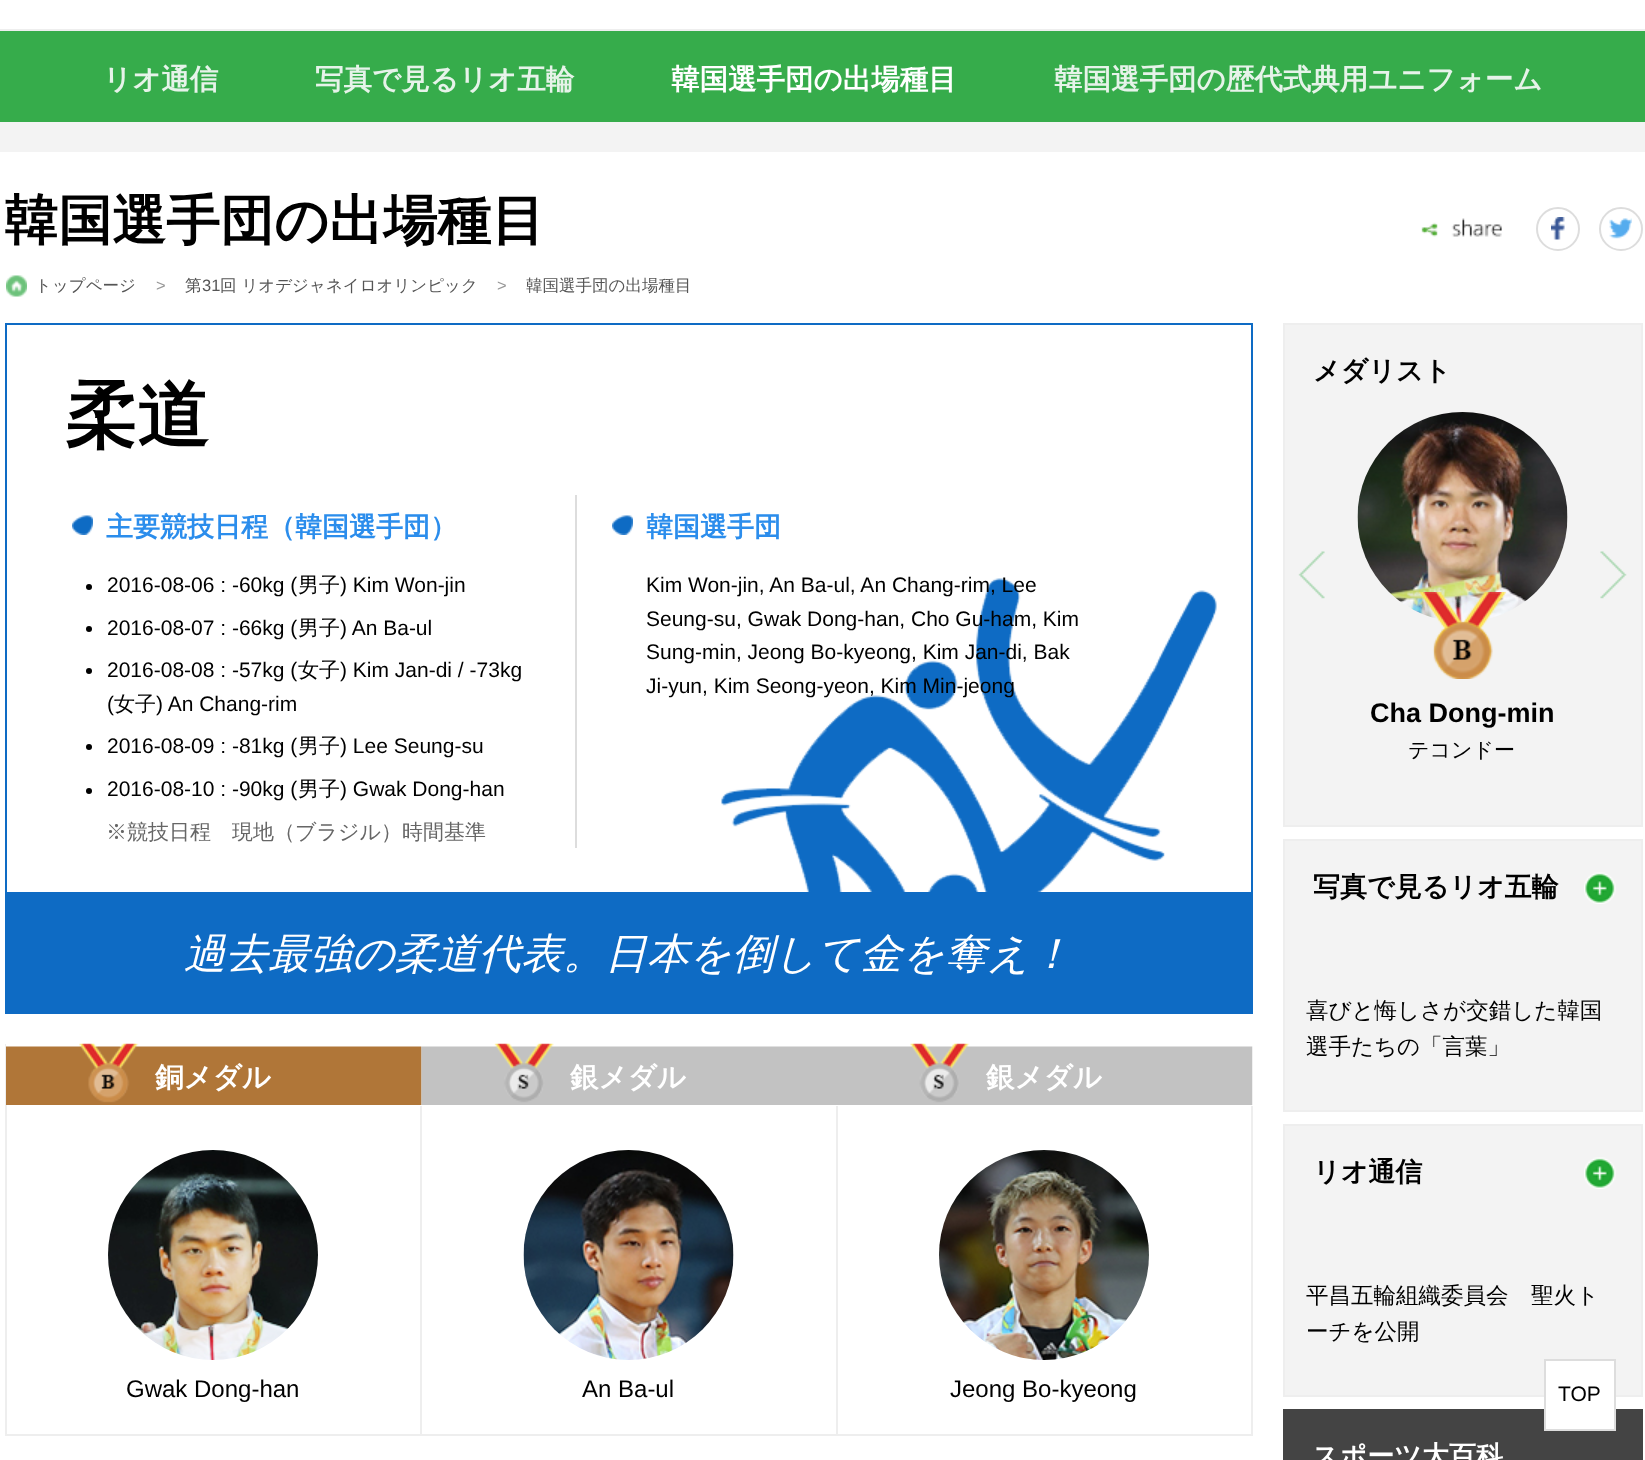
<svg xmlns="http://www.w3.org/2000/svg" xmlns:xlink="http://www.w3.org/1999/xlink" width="1645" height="1460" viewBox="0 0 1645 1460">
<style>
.cls-1{font:bold 28.5px WenQuanYi Zen Hei;fill:#e6f3e9}
.cls-2{font:bold 28.5px WenQuanYi Zen Hei;fill:#ffffff}
.cls-3{font:bold 54px WenQuanYi Zen Hei;fill:#000000}
.cls-4{font:500 16.5px WenQuanYi Zen Hei;fill:#555555}
.cls-5{font:16.5px Liberation Sans;fill:#999999}
.cls-6{font:16.5px Liberation Sans;fill:#555555}
.cls-7{font:bold 72px WenQuanYi Zen Hei;fill:#000000}
.cls-8{font:bold 27px WenQuanYi Zen Hei;fill:#2b8dec}
.cls-9{font:21px Liberation Sans;fill:#000000}
.cls-10{font:500 21px WenQuanYi Zen Hei;fill:#000000}
.cls-11{font:500 21px WenQuanYi Zen Hei;fill:#666666}
.cls-12{font:italic 500 42px WenQuanYi Zen Hei;fill:#ffffff}
.cls-13{font:24px Liberation Sans;fill:#000000}
.cls-14{font:bold 27px WenQuanYi Zen Hei;fill:#000000}
.cls-15{font:bold 27px Liberation Sans;fill:#000000}
.cls-16{font:500 22.5px WenQuanYi Zen Hei;fill:#000000}
.cls-17{font:bold 27px WenQuanYi Zen Hei;fill:#ffffff}
</style>
<rect width="100%" height="100%" fill="#ffffff"/>
<rect fill="#36ac4b" x="0" y="31" width="1645" height="91"/>
<rect fill="#eeeeee" x="0" y="29" width="1645" height="2"/>
<rect fill="#f3f3f3" x="0" y="122" width="1645" height="30"/>
<image xlink:href="image0.png" x="1421" y="218" width="81" height="19"/>
<image xlink:href="image1.png" x="1551" y="217" width="14" height="23"/>
<circle fill="none" stroke="#dddddd" stroke-width="2" cx="1558" cy="229" r="21"/>
<image xlink:href="image2.png" x="1609" y="218" width="23" height="21"/>
<circle fill="none" stroke="#dddddd" stroke-width="2" cx="1621" cy="229" r="21"/>
<image xlink:href="image3.png" x="6" y="275" width="21" height="22"/>
<image xlink:href="image4.png" x="721" y="578" width="496" height="314"/>
<rect fill="none" stroke="#0e6bc4" stroke-width="2" x="6" y="324" width="1246" height="569"/>
<rect fill="#dddddd" x="575" y="495" width="2" height="353"/>
<image xlink:href="image5.png" x="72" y="515" width="21" height="20"/>
<circle fill="#000000" cx="89" cy="587" r="3"/>
<circle fill="#000000" cx="89" cy="629" r="3"/>
<circle fill="#000000" cx="89" cy="671" r="3"/>
<circle fill="#000000" cx="89" cy="747" r="3"/>
<circle fill="#000000" cx="89" cy="791" r="3"/>
<image xlink:href="image5.png" x="612" y="515" width="21" height="20"/>
<rect fill="#0e6bc4" x="5" y="894" width="1248" height="120"/>
<rect fill="#eeeeee" x="5" y="1044" width="2" height="392"/>
<image xlink:href="image6.png" x="6" y="1043" width="416" height="62"/>
<rect fill="#eeeeee" x="420" y="1106" width="2" height="330"/>
<rect fill="#eeeeee" x="6" y="1434" width="416" height="2"/>
<image xlink:href="image7.png" x="108" y="1150" width="210" height="210"/>
<image xlink:href="image8.png" x="421" y="1043" width="416" height="62"/>
<rect fill="#eeeeee" x="836" y="1106" width="2" height="330"/>
<rect fill="#eeeeee" x="422" y="1434" width="415" height="2"/>
<image xlink:href="image9.png" x="523" y="1150" width="211" height="210"/>
<image xlink:href="image10.png" x="837" y="1043" width="416" height="62"/>
<rect fill="#eeeeee" x="1251" y="1106" width="2" height="330"/>
<rect fill="#eeeeee" x="837" y="1434" width="416" height="2"/>
<image xlink:href="image11.png" x="939" y="1150" width="210" height="210"/>
<rect fill="#f3f3f3" stroke="#eeeeee" stroke-width="2" x="1284" y="324" width="358" height="502"/>
<image xlink:href="image12.png" x="1298" y="551" width="27" height="48"/>
<image xlink:href="image13.png" x="1600" y="551" width="27" height="48"/>
<image xlink:href="image14.png" x="1357" y="412" width="211" height="210"/>
<image xlink:href="image15.png" x="1419" y="592" width="87" height="87"/>
<rect fill="#f3f3f3" stroke="#eeeeee" stroke-width="2" x="1284" y="840" width="358" height="271"/>
<image xlink:href="image16.png" x="1584" y="872" width="32" height="32"/>
<rect fill="#f3f3f3" stroke="#eeeeee" stroke-width="2" x="1284" y="1125" width="358" height="271"/>
<image xlink:href="image16.png" x="1584" y="1157" width="32" height="32"/>
<rect fill="#444444" x="1283" y="1409" width="360" height="51"/>
<rect fill="#ffffff" stroke="#dddddd" stroke-width="2" x="1545" y="1360" width="70" height="70"/>
<text class="cls-1" x="103" y="89">リオ通信</text>
<text class="cls-1" x="315" y="89">写真で見るリオ五輪</text>
<text class="cls-2" x="671" y="89">韓国選手団の出場種目</text>
<text class="cls-1" x="1054" y="89">韓国選手団の歴代式典用ユニフォーム</text>
<text class="cls-3" x="4" y="239">韓国選手団の出場種目</text>
<text class="cls-4" x="35" y="291">トップページ</text>
<text class="cls-5" x="156" y="291">&gt;</text>
<text class="cls-4" x="185" y="291">第</text>
<text class="cls-6" x="202" y="291">31</text>
<text class="cls-4" x="220" y="291">回 リオデジャネイロオリンピック</text>
<text class="cls-5" x="497" y="291">&gt;</text>
<text class="cls-4" x="526" y="291">韓国選手団の出場種目</text>
<text class="cls-7" x="65" y="440">柔道</text>
<text class="cls-8" x="106" y="536">主要競技日程（韓国選手団）</text>
<text class="cls-9" x="107" y="592">2016-08-06 : -60kg (</text>
<text class="cls-10" x="298" y="592">男子</text>
<text class="cls-9" x="340" y="592">) Kim Won-jin</text>
<text class="cls-9" x="107" y="635">2016-08-07 : -66kg (</text>
<text class="cls-10" x="298" y="635">男子</text>
<text class="cls-9" x="340" y="635">) An Ba-ul</text>
<text class="cls-9" x="107" y="677">2016-08-08 : -57kg (</text>
<text class="cls-10" x="298" y="677">女子</text>
<text class="cls-9" x="340" y="677">) Kim Jan-di / -73kg</text>
<text class="cls-9" x="107" y="711">(</text>
<text class="cls-10" x="114" y="711">女子</text>
<text class="cls-9" x="156" y="711">) An Chang-rim</text>
<text class="cls-9" x="107" y="753">2016-08-09 : -81kg (</text>
<text class="cls-10" x="298" y="753">男子</text>
<text class="cls-9" x="340" y="753">) Lee Seung-su</text>
<text class="cls-9" x="107" y="796">2016-08-10 : -90kg (</text>
<text class="cls-10" x="298" y="796">男子</text>
<text class="cls-9" x="340" y="796">) Gwak Dong-han</text>
<text class="cls-11" x="106" y="839">※競技日程　現地（ブラジル）時間基準</text>
<text class="cls-8" x="646" y="536">韓国選手団</text>
<text class="cls-9"><tspan x="646" y="592">Kim Won-jin, An Ba-ul, An Chang-rim, Lee</tspan><tspan x="646" y="626">Seung-su, Gwak Dong-han, Cho Gu-ham, Kim</tspan><tspan x="646" y="659">Sung-min, Jeong Bo-kyeong, Kim Jan-di, Bak</tspan><tspan x="646" y="693">Ji-yun, Kim Seong-yeon, Kim Min-jeong</tspan></text>
<text class="cls-12" x="184" y="968">過去最強の柔道代表。日本を倒して金を奪え！</text>
<text class="cls-2" x="155" y="1087">銅メダル</text>
<text class="cls-13" x="126" y="1397">Gwak Dong-han</text>
<text class="cls-2" x="570" y="1087">銀メダル</text>
<text class="cls-13" x="582" y="1397">An Ba-ul</text>
<text class="cls-2" x="986" y="1087">銀メダル</text>
<text class="cls-13" x="950" y="1397">Jeong Bo-kyeong</text>
<text class="cls-14" x="1313" y="380">メダリスト</text>
<text class="cls-15" x="1370" y="722">Cha Dong-min</text>
<text class="cls-10" x="1408" y="757">テコンドー</text>
<text class="cls-14" x="1313" y="896">写真で見るリオ五輪</text>
<text class="cls-16"><tspan x="1306" y="1018">喜びと悔しさが交錯した韓国</tspan><tspan x="1306" y="1054">選手たちの「言葉」</tspan></text>
<text class="cls-14" x="1313" y="1181">リオ通信</text>
<text class="cls-16"><tspan x="1306" y="1303">平昌五輪組織委員会　聖火ト</tspan><tspan x="1306" y="1339">ーチを公開</tspan></text>
<text class="cls-17" x="1312" y="1465">スポーツ大百科</text>
<text class="cls-9" x="1558" y="1401">TOP</text>
</svg>
